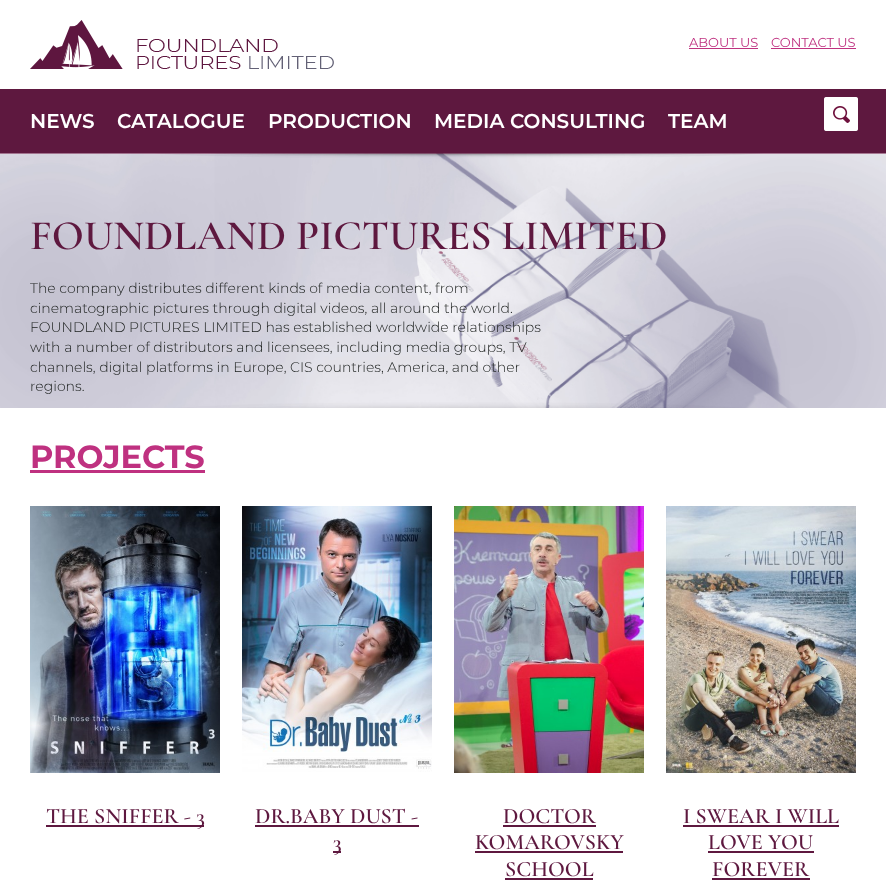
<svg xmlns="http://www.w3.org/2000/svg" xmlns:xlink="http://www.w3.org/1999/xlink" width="886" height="886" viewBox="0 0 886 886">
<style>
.cls-1{font:13px Montserrat;fill:#bf3180}
.cls-2{font:600 20px Montserrat;fill:#ffffff}
.cls-3{font:600 42px Cormorant Garamond;fill:#5e183f}
.cls-4{font:300 14px Montserrat;fill:#191d1b}
.cls-5{font:bold 32px Montserrat;fill:#bf3180}
.cls-6{font:600 22px Cormorant Garamond;fill:#5e183f}
</style>
<rect width="100%" height="100%" fill="#ffffff"/>
<image xlink:href="image0.png" x="30" y="20" width="304" height="49"/>
<rect fill="#bf3180" x="689" y="48" width="69" height="1"/>
<rect fill="#bf3180" x="771" y="48" width="85" height="1"/>
<rect fill="#5e183f" x="0" y="89" width="886" height="64"/>
<image xlink:href="image1.png" x="824" y="97" width="34" height="34"/>
<image xlink:href="image2.png" x="0" y="153" width="886" height="255"/>
<rect fill="#bf3180" x="30" y="470" width="175" height="3"/>
<image xlink:href="image3.png" x="30" y="506" width="190" height="267"/>
<rect fill="#5e183f" x="46" y="825" width="158" height="2"/>
<image xlink:href="image4.png" x="242" y="506" width="190" height="266"/>
<rect fill="#5e183f" x="255" y="825" width="164" height="2"/>
<rect fill="#5e183f" x="333" y="851" width="8" height="2"/>
<image xlink:href="image5.png" x="454" y="506" width="190" height="267"/>
<rect fill="#5e183f" x="503" y="825" width="93" height="2"/>
<rect fill="#5e183f" x="475" y="851" width="148" height="2"/>
<rect fill="#5e183f" x="505" y="878" width="88" height="2"/>
<image xlink:href="image6.png" x="666" y="506" width="190" height="267"/>
<rect fill="#5e183f" x="683" y="825" width="156" height="2"/>
<rect fill="#5e183f" x="708" y="851" width="106" height="2"/>
<rect fill="#5e183f" x="712" y="878" width="98" height="2"/>
<text class="cls-1" x="689" y="47">ABOUT US</text>
<text class="cls-1" x="771" y="47">CONTACT US</text>
<text class="cls-2" x="30" y="128">NEWS</text>
<text class="cls-2" x="117" y="128">CATALOGUE</text>
<text class="cls-2" x="268" y="128">PRODUCTION</text>
<text class="cls-2" x="434" y="128">MEDIA CONSULTING</text>
<text class="cls-2" x="668" y="128">TEAM</text>
<text class="cls-3" x="30" y="249">FOUNDLAND PICTURES LIMITED</text>
<text class="cls-4"><tspan x="30" y="293">The company distributes different kinds of media content, from</tspan><tspan x="30" y="313">cinematographic pictures through digital videos, all around the world.</tspan><tspan x="30" y="332">FOUNDLAND PICTURES LIMITED has established worldwide relationships</tspan><tspan x="30" y="352">with a number of distributors and licensees, including media groups, TV</tspan><tspan x="30" y="372">channels, digital platforms in Europe, CIS countries, America, and other</tspan><tspan x="30" y="391">regions.</tspan></text>
<text class="cls-5" x="30" y="468">PROJECTS</text>
<text class="cls-6" x="46" y="823">THE SNIFFER - 3</text>
<text class="cls-6" x="255" y="823">DR.BABY DUST -</text>
<text class="cls-6" x="333" y="849">3</text>
<text class="cls-6" x="503" y="823">DOCTOR</text>
<text class="cls-6" x="475" y="849">KOMAROVSKY</text>
<text class="cls-6" x="505" y="876">SCHOOL</text>
<text class="cls-6" x="683" y="823">I SWEAR I WILL</text>
<text class="cls-6" x="708" y="849">LOVE YOU</text>
<text class="cls-6" x="712" y="876">FOREVER</text>
</svg>
